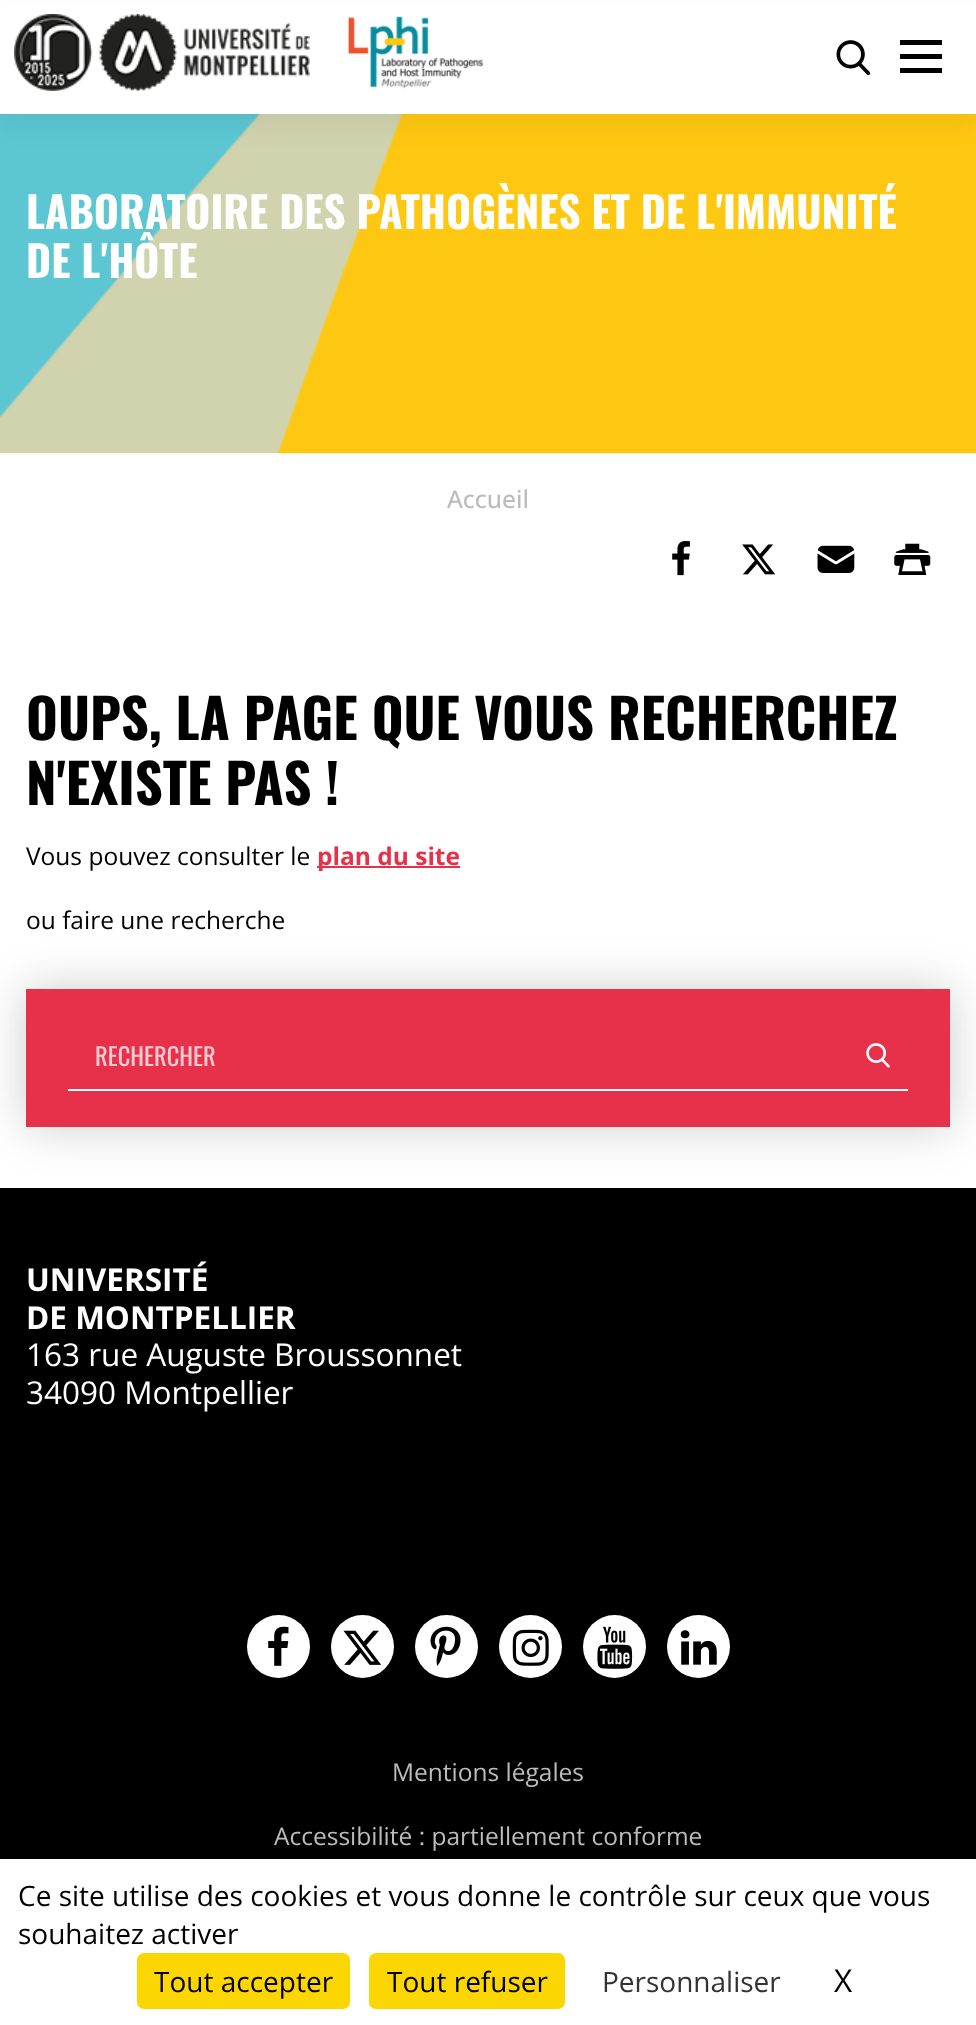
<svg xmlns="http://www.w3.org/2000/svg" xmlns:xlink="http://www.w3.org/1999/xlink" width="976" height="2025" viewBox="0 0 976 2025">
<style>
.cls-1{font:bold 42.9px Oswald;fill:#ffffff}
.cls-2{font:500 24.5px Open Sans;fill:#bcbcbc}
.cls-3{font:bold 54.5px Oswald;fill:#000000}
.cls-4{font:24.5px Open Sans;fill:#000000}
.cls-5{font:bold 24.5px Open Sans;fill:#e7314b}
.cls-6{font:24.5px Oswald;fill:#f9ccd2}
.cls-7{font:bold 31.5px Open Sans;fill:#ffffff}
.cls-8{font:31.5px Open Sans;fill:#ffffff}
.cls-9{font:24.5px Open Sans;fill:#bcbcbc}
.cls-10{font:28px Open Sans;fill:#000000}
.cls-11{font:28px Open Sans;fill:#333333}
.cls-12{font:31.5px Open Sans;fill:#000000}
</style>
<rect width="100%" height="100%" fill="#ffffff"/>
<image xlink:href="image3.png" x="0" y="114" width="976" height="340"/>
<rect fill="#000000" fill-opacity="0.05" filter="blur(12px)" x="0" y="12" width="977" height="114"/>
<rect fill="#ffffff" x="0" y="2" width="976" height="112"/>
<image xlink:href="image0.png" x="14" y="14" width="296" height="77"/>
<image xlink:href="image1.png" x="347" y="16" width="137" height="73"/>
<image xlink:href="image2.png" x="836" y="40" width="35" height="36"/>
<rect fill="#000000" x="900" y="54" width="42" height="5"/>
<rect fill="#000000" x="900" y="40" width="42" height="5"/>
<rect fill="#000000" x="900" y="68" width="42" height="5"/>
<image xlink:href="image4.png" x="672" y="541" width="18" height="35"/>
<image xlink:href="image5.png" x="742" y="544" width="34" height="31"/>
<image xlink:href="image6.png" x="817" y="545" width="38" height="28"/>
<image xlink:href="image7.png" x="894" y="543" width="37" height="32"/>
<rect fill="#e7314b" x="317" y="866" width="143" height="2"/>
<rect fill="#000000" x="0" y="1188" width="976" height="671"/>
<rect fill="#000000" fill-opacity="0.2" filter="blur(23.5px)" x="26" y="989" width="924" height="138"/>
<rect fill="#e7314b" x="26" y="989" width="924" height="138"/>
<rect fill="#ffffff" x="68" y="1089" width="840" height="2"/>
<image xlink:href="image8.png" x="866" y="1043" width="24" height="25"/>
<circle fill="#ffffff" cx="278.5" cy="1646.5" r="31.5"/>
<image xlink:href="image9.png" x="268" y="1626" width="21" height="40"/>
<circle fill="#ffffff" cx="362.5" cy="1646.5" r="31.5"/>
<image xlink:href="image10.png" x="343" y="1630" width="39" height="35"/>
<circle fill="#ffffff" cx="446.5" cy="1646.5" r="31.5"/>
<image xlink:href="image11.png" x="430" y="1626" width="31" height="40"/>
<circle fill="#ffffff" cx="530.5" cy="1646.5" r="31.5"/>
<image xlink:href="image12.png" x="512" y="1629" width="37" height="37"/>
<circle fill="#ffffff" cx="614.5" cy="1646.5" r="31.5"/>
<image xlink:href="image13.png" x="597" y="1626" width="36" height="43"/>
<circle fill="#ffffff" cx="698.5" cy="1646.5" r="31.5"/>
<image xlink:href="image14.png" x="680" y="1630" width="37" height="35"/>
<rect fill="#000000" fill-opacity="0.25" filter="blur(52.5px)" x="0" y="1894" width="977" height="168"/>
<rect fill="#ffffff" x="0" y="1859" width="976" height="166"/>
<rect fill="#fbd600" x="137" y="1953" width="213" height="56" rx="7"/>
<rect fill="#fbd600" x="369" y="1953" width="196" height="56" rx="7"/>
<text class="cls-1"><tspan x="26" y="229">LABORATOIRE DES PATHOGÈNES ET DE L'IMMUNITÉ</tspan><tspan x="26" y="278">DE L'HÔTE</tspan></text>
<text class="cls-2" x="447" y="508">Accueil</text>
<text class="cls-3"><tspan x="26" y="740">OUPS, LA PAGE QUE VOUS RECHERCHEZ</tspan><tspan x="26" y="805">N'EXISTE PAS !</tspan></text>
<text class="cls-4" x="26" y="865">Vous pouvez consulter le</text>
<text class="cls-5" x="317" y="865">plan du site</text>
<text class="cls-4" x="26" y="929">ou faire une recherche</text>
<text class="cls-6" x="95" y="1066">RECHERCHER</text>
<text class="cls-7"><tspan x="26" y="1291">UNIVERSITÉ</tspan><tspan x="26" y="1329">DE MONTPELLIER</tspan></text>
<text class="cls-8"><tspan x="26" y="1366">163 rue Auguste Broussonnet</tspan><tspan x="26" y="1404">34090 Montpellier</tspan></text>
<text class="cls-9" x="392" y="1781">Mentions légales</text>
<text class="cls-9" x="274" y="1845">Accessibilité : partiellement conforme</text>
<text class="cls-10"><tspan x="18" y="1906">Ce site utilise des cookies et vous donne le contrôle sur ceux que vous</tspan><tspan x="18" y="1944">souhaitez activer</tspan></text>
<text class="cls-10" x="154" y="1992">Tout accepter</text>
<text class="cls-10" x="387" y="1992">Tout refuser</text>
<text class="cls-11" x="602" y="1992">Personnaliser</text>
<text class="cls-12" x="834" y="1992">X</text>
</svg>
